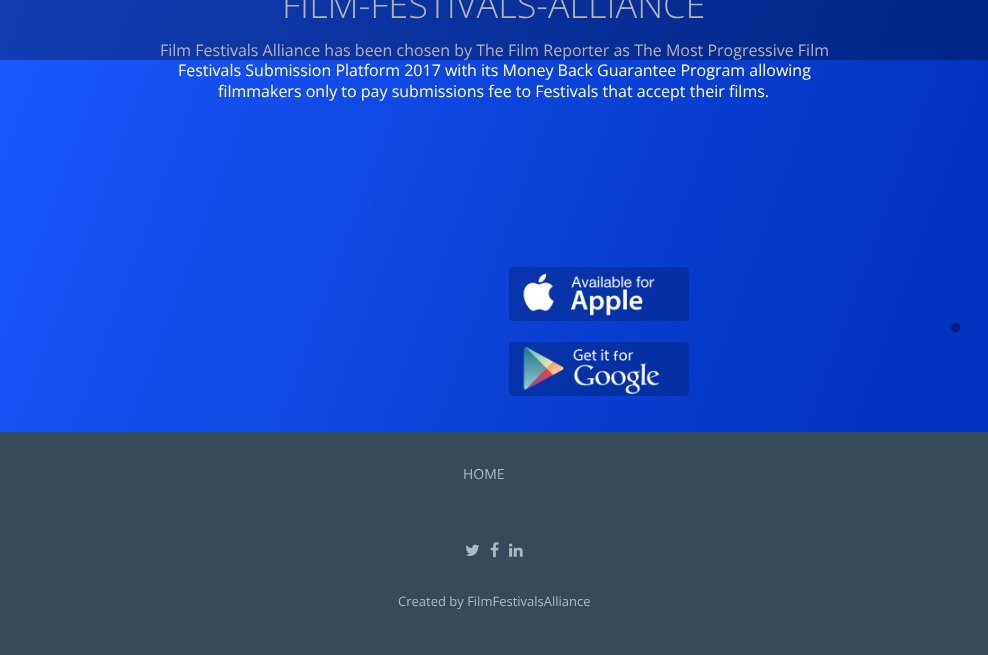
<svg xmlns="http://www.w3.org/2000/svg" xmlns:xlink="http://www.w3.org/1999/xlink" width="988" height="655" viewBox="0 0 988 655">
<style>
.cls-1{font:300 36px Open Sans;fill:#b3b3b3}
.cls-2{font:16px Open Sans;fill:#b3b3b3}
.cls-3{font:16px Open Sans;fill:#ffffff}
.cls-4{font:14px Open Sans;fill:#afb7bd}
.cls-5{font:13px Open Sans;fill:#afb7bd}
</style>
<defs>
<linearGradient id="g1" gradientUnits="userSpaceOnUse" x1="-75" y1="-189" x2="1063" y2="226"><stop offset="0.1" stop-color="#1b59fe"/><stop offset="0.9" stop-color="#0034bf"/></linearGradient>
<linearGradient id="g2" gradientUnits="userSpaceOnUse" x1="-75" y1="-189" x2="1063" y2="226"><stop offset="0.1" stop-color="#133eb2"/><stop offset="0.9" stop-color="#002486"/></linearGradient>
</defs>
<rect width="100%" height="100%" fill="#364b59"/>
<rect fill="url(#g1)" x="0" y="60" width="988" height="372"/>
<rect fill="url(#g2)" x="0" y="0" width="988" height="60"/>
<rect fill="#000000" fill-opacity="0.2" x="509" y="267" width="180" height="54" rx="4"/>
<image xlink:href="image0.png" x="523" y="273" width="132" height="43"/>
<rect fill="#000000" fill-opacity="0.2" x="509" y="342" width="180" height="54" rx="4"/>
<image xlink:href="image1.png" x="523" y="346" width="137" height="49"/>
<image xlink:href="image2.png" x="465" y="544" width="15" height="12"/>
<image xlink:href="image3.png" x="490" y="542" width="9" height="16"/>
<image xlink:href="image4.png" x="509" y="543" width="14" height="14"/>
<circle fill="#002486" cx="955.5" cy="327.5" r="4.5"/>
<circle fill="none" stroke="#000000" stroke-opacity="0.3" cx="955.5" cy="327.5" r="4"/>
<text class="cls-1" x="282" y="18">FILM-FESTIVALS-ALLIANCE</text>
<text class="cls-2" x="160" y="56">Film Festivals Alliance has been chosen by The Film Reporter as The Most Progressive Film</text>
<text class="cls-3" x="178" y="76">Festivals Submission Platform 2017 with its Money Back Guarantee Program allowing</text>
<text class="cls-3" x="218" y="97">filmmakers only to pay submissions fee to Festivals that accept their films.</text>
<text class="cls-4" x="463" y="479">HOME</text>
<text class="cls-5" x="398" y="606">Created by FilmFestivalsAlliance</text>
</svg>
